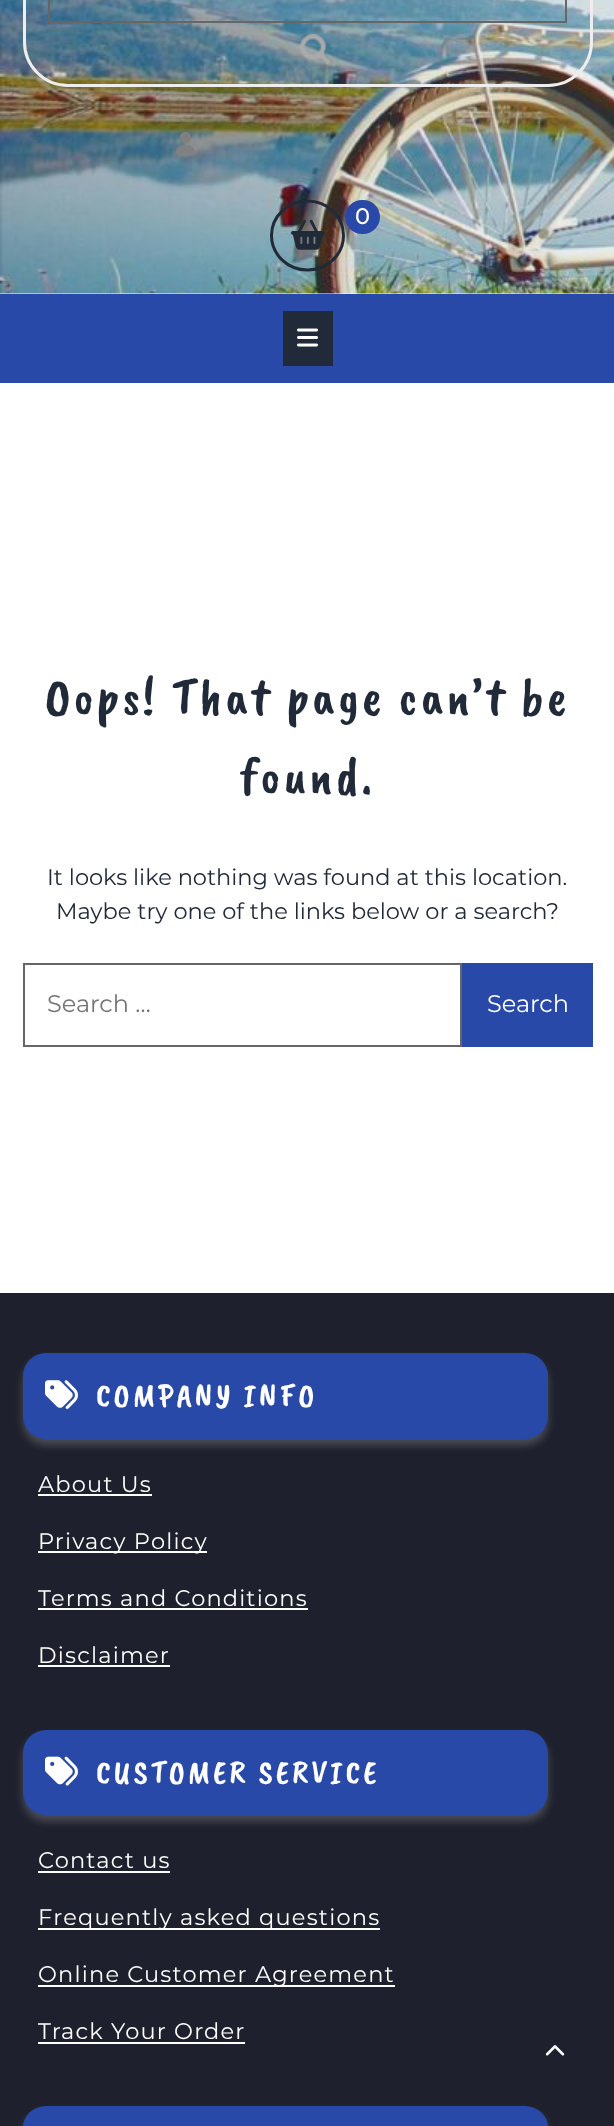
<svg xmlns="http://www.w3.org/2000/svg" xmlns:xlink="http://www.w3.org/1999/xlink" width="614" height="2126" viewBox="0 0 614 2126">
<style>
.cls-1{font:500 22.5px Montserrat;fill:#ffffff}
.cls-2{font:52.5px Caveat Brush;letter-spacing:3px;fill:#212a39}
.cls-3{font:22.5px Montserrat;fill:#212a39}
.cls-4{font:24px Montserrat;fill:#757575}
.cls-5{font:24px Montserrat;fill:#ffffff}
.cls-6{font:33px Caveat Brush;letter-spacing:3px;fill:#ffffff}
.cls-7{font:22.5px Montserrat;letter-spacing:1.2px;fill:#ffffff}
</style>
<rect width="100%" height="100%" fill="#ffffff"/>
<image xlink:href="image0.png" x="0" y="0" width="614" height="294"/>
<rect fill="none" stroke="#eeeeee" stroke-width="3" x="24.5" y="-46.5" width="567" height="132" rx="43.5"/>
<rect fill="none" stroke="#666666" stroke-width="2" x="49" y="-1" width="517" height="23"/>
<image xlink:href="image1.png" x="300" y="34" width="30" height="30"/>
<image xlink:href="image2.png" x="175" y="131" width="20" height="24"/>
<path fill="none" stroke="#212a39" stroke-width="3" d="M307.5 201C327.5 201 343.5 216.5 343.5 235.5C343.5 254.5 327.5 270 307.5 270C287.5 270 271.5 254.5 271.5 235.5C271.5 216.5 287.5 201 307.5 201Z"/>
<image xlink:href="image3.png" x="291" y="219" width="34" height="31"/>
<rect fill="#2849a8" x="345" y="200" width="35" height="34" rx="17"/>
<rect fill="#2849a8" x="0" y="294" width="614" height="89"/>
<rect fill="#212a39" x="283" y="311" width="50" height="55"/>
<image xlink:href="image4.png" x="297" y="328" width="21" height="19"/>
<rect fill="none" stroke="#666666" stroke-width="2" x="24" y="964" width="437" height="82"/>
<rect fill="#2849a8" x="462" y="963" width="131" height="84"/>
<rect fill="#1e212d" x="0" y="1293" width="614" height="833"/>
<rect fill="#ffffff" fill-opacity="0.2" filter="blur(4.5px)" x="23" y="1359" width="525" height="86" rx="23"/>
<rect fill="#2849a8" x="23" y="1353" width="525" height="86" rx="23"/>
<image xlink:href="image5.png" x="45" y="1380" width="33" height="29"/>
<rect fill="#ffffff" x="38" y="1494" width="114" height="2"/>
<rect fill="#ffffff" x="38" y="1551" width="169" height="2"/>
<rect fill="#ffffff" x="38" y="1608" width="270" height="2"/>
<rect fill="#ffffff" x="38" y="1665" width="132" height="2"/>
<rect fill="#ffffff" fill-opacity="0.2" filter="blur(4.5px)" x="23" y="1736" width="525" height="85" rx="23"/>
<rect fill="#2849a8" x="23" y="1730" width="525" height="85" rx="23"/>
<image xlink:href="image6.png" x="45" y="1756" width="33" height="30"/>
<rect fill="#ffffff" x="38" y="1871" width="132" height="2"/>
<rect fill="#ffffff" x="38" y="1928" width="342" height="2"/>
<rect fill="#ffffff" x="38" y="1985" width="357" height="2"/>
<rect fill="#ffffff" x="38" y="2042" width="207" height="2"/>
<rect fill="#ffffff" fill-opacity="0.2" filter="blur(4.5px)" x="23" y="2112" width="525" height="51" rx="23"/>
<rect fill="#2849a8" x="23" y="2106" width="525" height="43" rx="23"/>
<image xlink:href="image7.png" x="545" y="2045" width="20" height="11"/>
<text class="cls-1" x="355" y="224">0</text>
<text class="cls-2" x="45" y="714">Oops! That page can’t be</text>
<text class="cls-2" x="240" y="793">found.</text>
<text class="cls-3" x="47" y="885">It looks like nothing was found at this location.</text>
<text class="cls-3" x="56" y="919">Maybe try one of the links below or a search?</text>
<text class="cls-4" x="47" y="1012">Search …</text>
<text class="cls-5" x="487" y="1012">Search</text>
<text class="cls-6" x="96" y="1406">COMPANY INFO</text>
<text class="cls-7" x="38" y="1492">About Us</text>
<text class="cls-7" x="38" y="1549">Privacy Policy</text>
<text class="cls-7" x="38" y="1606">Terms and Conditions</text>
<text class="cls-7" x="38" y="1663">Disclaimer</text>
<text class="cls-6" x="96" y="1783">CUSTOMER SERVICE</text>
<text class="cls-7" x="38" y="1868">Contact us</text>
<text class="cls-7" x="38" y="1925">Frequently asked questions</text>
<text class="cls-7" x="38" y="1982">Online Customer Agreement</text>
<text class="cls-7" x="38" y="2039">Track Your Order</text>
</svg>
